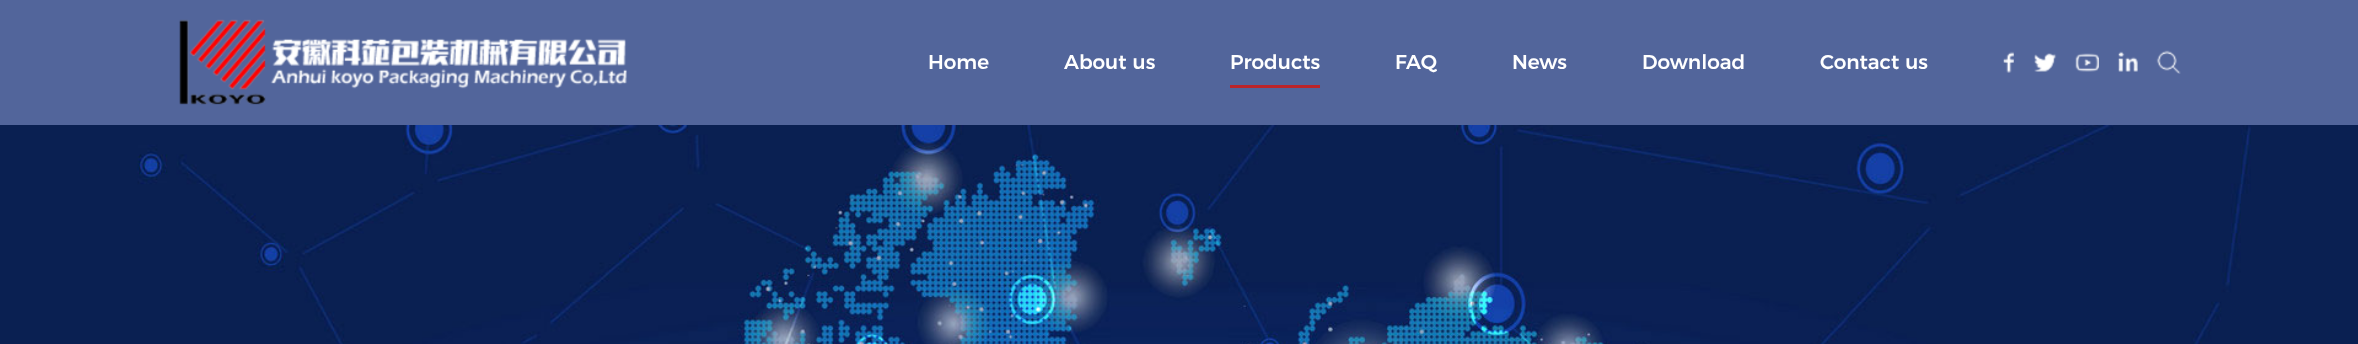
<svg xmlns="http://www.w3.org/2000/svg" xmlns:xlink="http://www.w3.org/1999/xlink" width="2358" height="344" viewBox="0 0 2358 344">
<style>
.cls-1{font:500 20px Montserrat;fill:#ffffff}
</style>
<rect width="100%" height="100%" fill="#ffffff"/>
<rect fill="#52659b" x="0" y="0" width="2358" height="125"/>
<image xlink:href="image0.png" x="179" y="19" width="448" height="86"/>
<rect fill="#bd2429" x="1230" y="85" width="90" height="3"/>
<image xlink:href="image1.png" x="2003" y="51" width="11" height="22"/>
<image xlink:href="image2.png" x="2034" y="53" width="23" height="19"/>
<image xlink:href="image3.png" x="2075" y="53" width="24" height="19"/>
<image xlink:href="image4.png" x="2118" y="51" width="20" height="21"/>
<image xlink:href="image5.png" x="2156" y="50" width="25" height="24"/>
<image xlink:href="image6.png" x="0" y="125" width="2358" height="219"/>
<text class="cls-1" x="928" y="69">Home</text>
<text class="cls-1" x="1064" y="69">About us</text>
<text class="cls-1" x="1230" y="69">Products</text>
<text class="cls-1" x="1395" y="69">FAQ</text>
<text class="cls-1" x="1512" y="69">News</text>
<text class="cls-1" x="1642" y="69">Download</text>
<text class="cls-1" x="1820" y="69">Contact us</text>
</svg>
